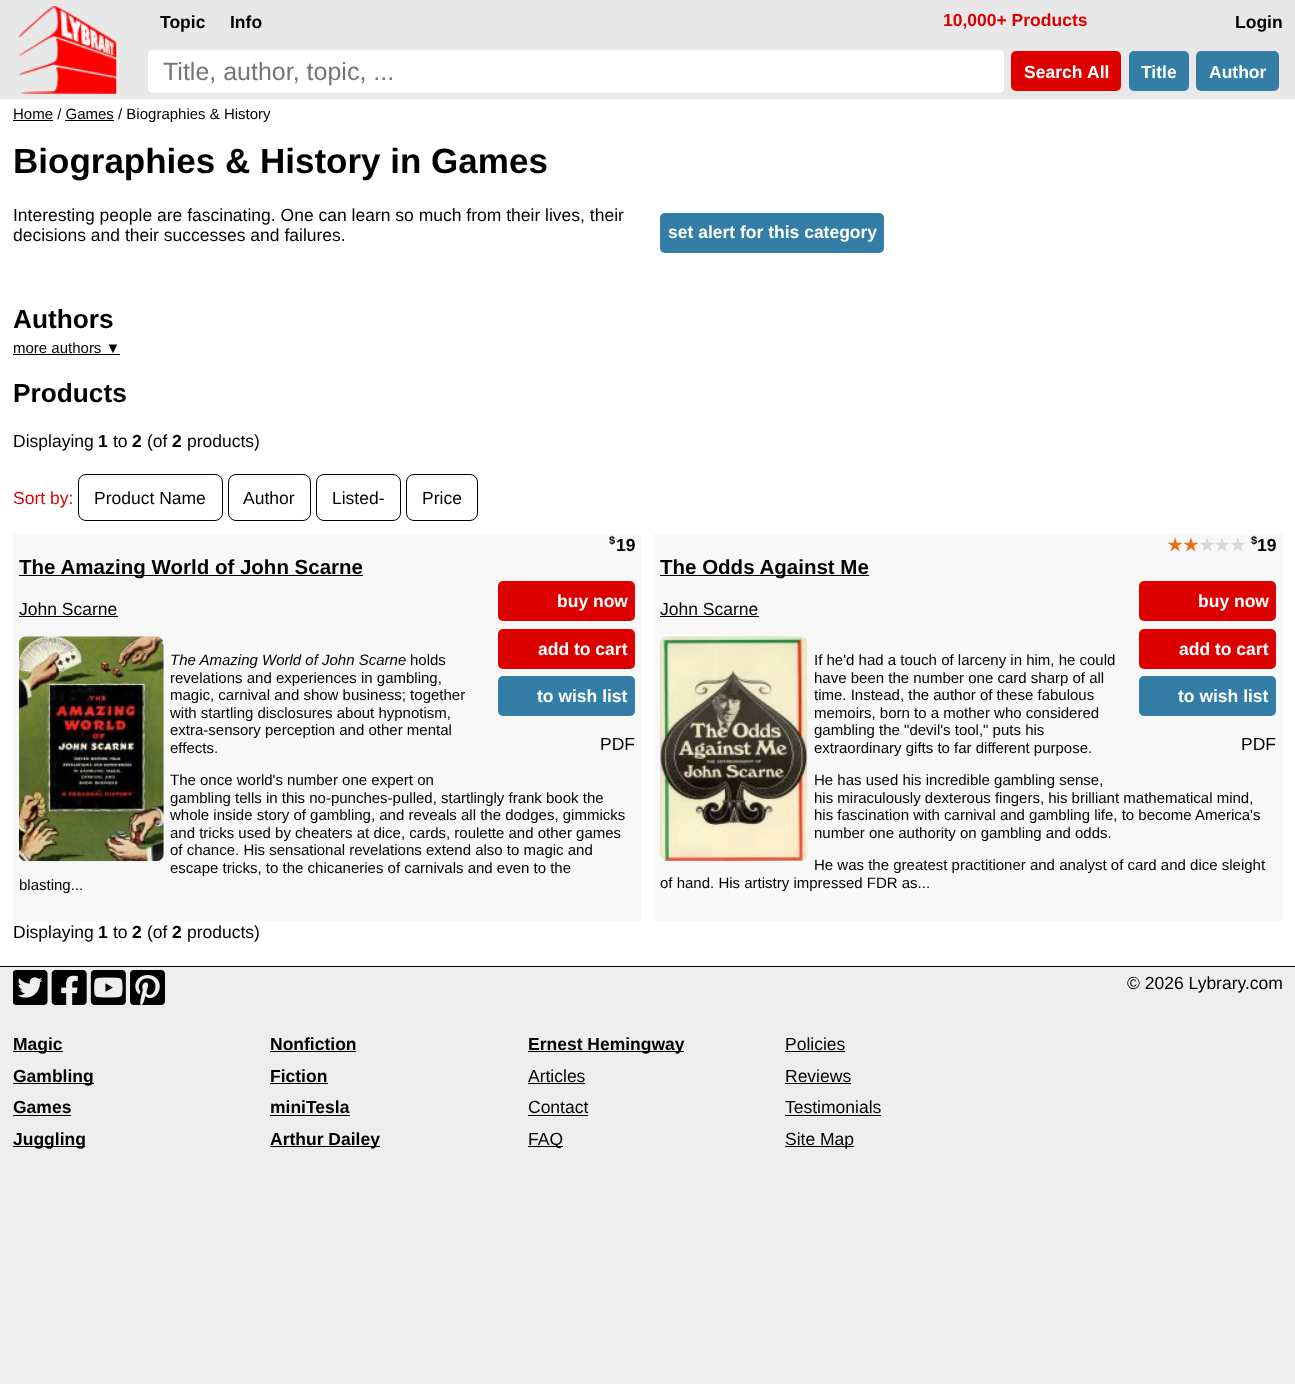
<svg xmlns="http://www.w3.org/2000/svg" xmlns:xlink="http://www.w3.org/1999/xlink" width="1295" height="1384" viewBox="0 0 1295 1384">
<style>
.cls-1{font:bold 17.5px Liberation Sans;fill:#000000}
.cls-2{font:bold 17.5px Liberation Sans;fill:#dd0000}
.cls-3{font:25px Liberation Sans;fill:#757575}
.cls-4{font:bold 17.5px Liberation Sans;fill:#ffffff}
.cls-5{font:15px Liberation Sans;fill:#000000}
.cls-6{font:bold 35px Liberation Sans;fill:#000000}
.cls-7{font:17.5px Liberation Sans;fill:#000000}
.cls-8{font:bold 26.25px Liberation Sans;fill:#000000}
.cls-9{font:17.5px Liberation Sans;fill:#dd0000}
.cls-10{font:bold 11px Liberation Sans;fill:#000000}
.cls-11{font:bold 20.5px Liberation Sans;fill:#000000}
.cls-12{font:italic 15px Liberation Sans;fill:#000000}
.cls-13{font:bold 17.5px DejaVu Sans;fill:#e7711b}
.cls-14{font:bold 17.5px DejaVu Sans;fill:#d8d8d8}
</style>
<rect width="100%" height="100%" fill="#eeeeee"/>
<rect fill="#e8e8e8" x="0" y="0" width="1295" height="99"/>
<image xlink:href="image0.png" x="18" y="6" width="99" height="88"/>
<rect fill="#ffffff" x="148" y="50" width="856" height="43" rx="5"/>
<rect fill="#dd0000" x="1011" y="51" width="110" height="40" rx="5"/>
<rect fill="#337da6" x="1129" y="51" width="60" height="40" rx="5"/>
<rect fill="#337da6" x="1196" y="51" width="83" height="40" rx="5"/>
<rect fill="#ffffff" x="0" y="99" width="1295" height="867"/>
<rect fill="#000000" x="13" y="120" width="40" height="1"/>
<rect fill="#000000" x="65" y="120" width="49" height="1"/>
<rect fill="#337da6" x="660" y="213" width="224" height="40" rx="5"/>
<rect fill="#000000" x="13" y="354" width="107" height="1"/>
<rect fill="none" stroke="#000000" x="78.5" y="474.5" width="144" height="46" rx="7.5"/>
<rect fill="none" stroke="#000000" x="228.5" y="474.5" width="82" height="46" rx="7.5"/>
<rect fill="none" stroke="#000000" x="316.5" y="474.5" width="84" height="46" rx="7.5"/>
<rect fill="none" stroke="#000000" x="406.5" y="474.5" width="71" height="46" rx="7.5"/>
<rect fill="#f8f8f8" x="13" y="534" width="628" height="387"/>
<rect fill="#000000" x="19" y="575" width="344" height="1"/>
<rect fill="#000000" x="19" y="616" width="99" height="1"/>
<rect fill="#dd0000" x="498" y="581" width="137" height="40" rx="5"/>
<rect fill="#dd0000" x="498" y="629" width="137" height="40" rx="5"/>
<rect fill="#337da6" x="498" y="676" width="137" height="40" rx="5"/>
<image xlink:href="image1.png" x="18" y="636" width="146" height="226"/>
<rect fill="#f8f8f8" x="654" y="534" width="629" height="387"/>
<rect fill="#000000" x="660" y="575" width="209" height="1"/>
<rect fill="#000000" x="660" y="616" width="99" height="1"/>
<rect fill="#dd0000" x="1139" y="581" width="137" height="40" rx="5"/>
<rect fill="#dd0000" x="1139" y="629" width="137" height="40" rx="5"/>
<rect fill="#337da6" x="1139" y="676" width="137" height="40" rx="5"/>
<image xlink:href="image2.png" x="660" y="636" width="148" height="226"/>
<rect fill="#000000" x="0" y="966" width="1295" height="1"/>
<image xlink:href="image3.png" x="13" y="970" width="152" height="35"/>
<rect fill="#000000" x="13" y="1051" width="50" height="1"/>
<rect fill="#000000" x="270" y="1051" width="86" height="1"/>
<rect fill="#000000" x="528" y="1051" width="156" height="1"/>
<rect fill="#000000" x="785" y="1051" width="60" height="1"/>
<rect fill="#000000" x="13" y="1083" width="81" height="1"/>
<rect fill="#000000" x="270" y="1083" width="58" height="1"/>
<rect fill="#000000" x="528" y="1083" width="57" height="1"/>
<rect fill="#000000" x="785" y="1083" width="66" height="1"/>
<rect fill="#000000" x="13" y="1115" width="58" height="1"/>
<rect fill="#000000" x="270" y="1115" width="80" height="1"/>
<rect fill="#000000" x="528" y="1115" width="60" height="1"/>
<rect fill="#000000" x="785" y="1115" width="96" height="1"/>
<rect fill="#000000" x="13" y="1146" width="72" height="1"/>
<rect fill="#000000" x="270" y="1146" width="110" height="1"/>
<rect fill="#000000" x="528" y="1146" width="35" height="1"/>
<rect fill="#000000" x="785" y="1146" width="69" height="1"/>
<text class="cls-1" x="160" y="28">Topic</text>
<text class="cls-1" x="230" y="28">Info</text>
<text class="cls-2" x="943" y="26">10,000+ Products</text>
<text class="cls-1" x="1235" y="28">Login</text>
<text class="cls-3" x="163" y="80">Title, author, topic, ...</text>
<text class="cls-4" x="1024" y="78">Search</text>
<text class="cls-4" x="1087" y="78">All</text>
<text class="cls-4" x="1141" y="78">Title</text>
<text class="cls-4" x="1209" y="78">Author</text>
<text class="cls-5" x="13" y="119">Home / Games / Biographies &amp; History</text>
<text class="cls-6" x="13" y="173">Biographies &amp; History in Games</text>
<text class="cls-7"><tspan x="13" y="221">Interesting people are fascinating. One can learn so much from their lives, their</tspan><tspan x="13" y="241">decisions and their successes and failures.</tspan></text>
<text class="cls-4" x="668" y="238">set alert for this category</text>
<text class="cls-8" x="13" y="328">Authors</text>
<text class="cls-5" x="13" y="353">more authors ▼</text>
<text class="cls-8" x="13" y="402">Products</text>
<text class="cls-7" x="13" y="447">Displaying</text>
<text class="cls-1" x="98" y="447">1</text>
<text class="cls-7" x="113" y="447">to</text>
<text class="cls-1" x="132" y="447">2</text>
<text class="cls-7" x="147" y="447">(of</text>
<text class="cls-1" x="172" y="447">2</text>
<text class="cls-7" x="187" y="447">products)</text>
<text class="cls-9" x="13" y="504">Sort by:</text>
<text class="cls-7" x="94" y="504">Product Name</text>
<text class="cls-7" x="243" y="504">Author</text>
<text class="cls-7" x="332" y="504">Listed-</text>
<text class="cls-7" x="422" y="504">Price</text>
<text class="cls-10" x="609" y="544">$</text>
<text class="cls-1" x="616" y="551">19</text>
<text class="cls-11" x="19" y="574">The Amazing World of John Scarne</text>
<text class="cls-7" x="19" y="615">John Scarne</text>
<text class="cls-4" x="557" y="607">buy now</text>
<text class="cls-4" x="538" y="655">add to cart</text>
<text class="cls-4" x="537" y="702">to wish list</text>
<text class="cls-7" x="600" y="750">PDF</text>
<text class="cls-12" x="170" y="665">The Amazing World of John Scarne</text>
<text class="cls-5" x="410" y="665">holds</text>
<text class="cls-5"><tspan x="170" y="683">revelations and experiences in gambling,</tspan><tspan x="170" y="700">magic, carnival and show business; together</tspan><tspan x="170" y="718">with startling disclosures about hypnotism,</tspan><tspan x="170" y="735">extra-sensory perception and other mental</tspan><tspan x="170" y="753">effects.</tspan></text>
<text class="cls-5"><tspan x="170" y="785">The once world's number one expert on</tspan><tspan x="170" y="803">gambling tells in this no-punches-pulled, startlingly frank book the</tspan><tspan x="170" y="820">whole inside story of gambling, and reveals all the dodges, gimmicks</tspan><tspan x="170" y="838">and tricks used by cheaters at dice, cards, roulette and other games</tspan><tspan x="170" y="855">of chance. His sensational revelations extend also to magic and</tspan><tspan x="170" y="873">escape tricks, to the chicaneries of carnivals and even to the</tspan></text>
<text class="cls-5" x="19" y="890">blasting...</text>
<text class="cls-13" x="1167" y="551">★★</text>
<text class="cls-14" x="1199" y="551">★</text>
<text class="cls-14" x="1214" y="551">★★</text>
<text class="cls-10" x="1251" y="544">$</text>
<text class="cls-1" x="1257" y="551">19</text>
<text class="cls-11" x="660" y="574">The Odds Against Me</text>
<text class="cls-7" x="660" y="615">John Scarne</text>
<text class="cls-4" x="1198" y="607">buy now</text>
<text class="cls-4" x="1179" y="655">add to cart</text>
<text class="cls-4" x="1178" y="702">to wish list</text>
<text class="cls-7" x="1241" y="750">PDF</text>
<text class="cls-5"><tspan x="814" y="665">If he'd had a touch of larceny in him, he could</tspan><tspan x="814" y="683">have been the number one card sharp of all</tspan><tspan x="814" y="700">time. Instead, the author of these fabulous</tspan><tspan x="814" y="718">memoirs, born to a mother who considered</tspan><tspan x="814" y="735">gambling the "devil's tool," puts his</tspan><tspan x="814" y="753">extraordinary gifts to far different purpose.</tspan></text>
<text class="cls-5"><tspan x="814" y="785">He has used his incredible gambling sense,</tspan><tspan x="814" y="803">his miraculously dexterous fingers, his brilliant mathematical mind,</tspan><tspan x="814" y="820">his fascination with carnival and gambling life, to become America's</tspan><tspan x="814" y="838">number one authority on gambling and odds.</tspan></text>
<text class="cls-5" x="814" y="870">He was the greatest practitioner and analyst of card and dice sleight</text>
<text class="cls-5" x="660" y="888">of hand. His artistry impressed FDR as...</text>
<text class="cls-7" x="13" y="938">Displaying</text>
<text class="cls-1" x="98" y="938">1</text>
<text class="cls-7" x="113" y="938">to</text>
<text class="cls-1" x="132" y="938">2</text>
<text class="cls-7" x="147" y="938">(of</text>
<text class="cls-1" x="172" y="938">2</text>
<text class="cls-7" x="187" y="938">products)</text>
<text class="cls-7" x="1127" y="989">© 2026 Lybrary.com</text>
<text class="cls-1" x="13" y="1050">Magic</text>
<text class="cls-1" x="270" y="1050">Nonfiction</text>
<text class="cls-1" x="528" y="1050">Ernest Hemingway</text>
<text class="cls-7" x="785" y="1050">Policies</text>
<text class="cls-1" x="13" y="1082">Gambling</text>
<text class="cls-1" x="270" y="1082">Fiction</text>
<text class="cls-7" x="528" y="1082">Articles</text>
<text class="cls-7" x="785" y="1082">Reviews</text>
<text class="cls-1" x="13" y="1113">Games</text>
<text class="cls-1" x="270" y="1113">miniTesla</text>
<text class="cls-7" x="528" y="1113">Contact</text>
<text class="cls-7" x="785" y="1113">Testimonials</text>
<text class="cls-1" x="13" y="1145">Juggling</text>
<text class="cls-1" x="270" y="1145">Arthur Dailey</text>
<text class="cls-7" x="528" y="1145">FAQ</text>
<text class="cls-7" x="785" y="1145">Site Map</text>
</svg>
